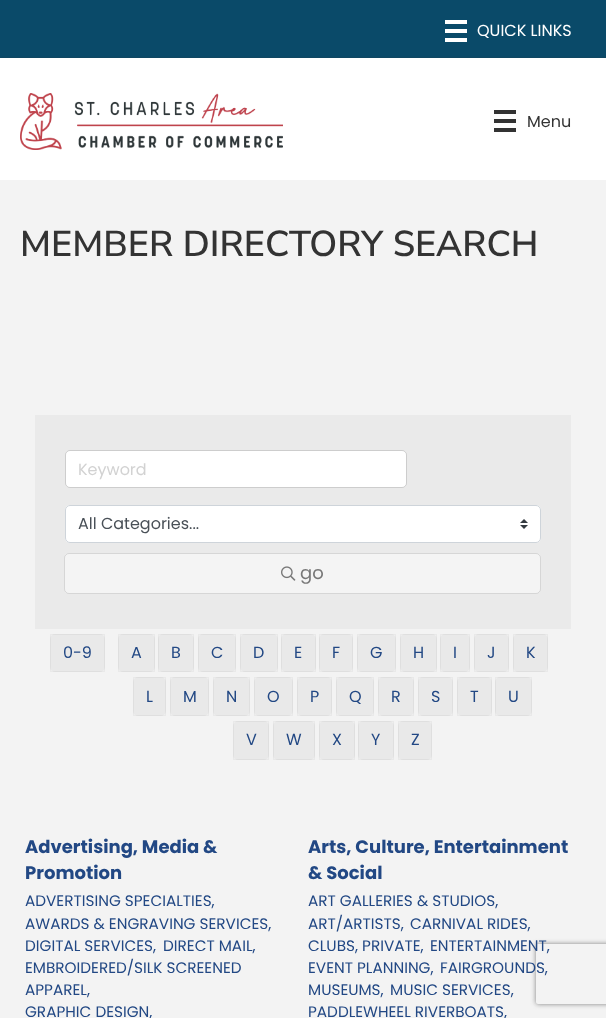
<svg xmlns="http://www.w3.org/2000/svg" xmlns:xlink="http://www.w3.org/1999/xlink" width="606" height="1018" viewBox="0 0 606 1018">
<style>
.cls-1{font:16px Poppins;fill:#ffffff}
.cls-2{font:16px Poppins;fill:#333333}
.cls-3{font:200 36px Nunito Sans;fill:#333333}
.cls-4{font:16px Poppins;fill:#d2d2d2}
.cls-5{font:16px Poppins;fill:#495057}
.cls-6{font:18px Poppins;fill:#777777}
.cls-7{font:16px Poppins;fill:#224884}
.cls-8{font:bold 18px Poppins;fill:#224884}
.cls-9{font:15.25px Poppins;fill:#224884}
</style>
<defs>
<clipPath id="clip1"><rect x="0" y="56" width="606" height="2"/></clipPath>
<clipPath id="clip2"><path d="M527 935H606V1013H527ZM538 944H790C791 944 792 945 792 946V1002C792 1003 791 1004 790 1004H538C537 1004 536 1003 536 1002V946C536 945 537 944 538 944Z" clip-rule="evenodd"/></clipPath>
</defs>
<rect width="100%" height="100%" fill="#ffffff"/>
<rect fill="#0a4a69" x="0" y="0" width="606" height="58"/>
<rect fill="#ffffff" x="445" y="20" width="22" height="4"/>
<rect fill="#ffffff" x="445" y="29" width="22" height="4"/>
<rect fill="#ffffff" x="445" y="38" width="22" height="4"/>
<g clip-path="url(#clip1)">
<rect fill="#333333" fill-opacity="0.87" filter="blur(1.5px)" x="1" y="59" width="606" height="122"/>
</g>
<image xlink:href="image0.png" x="20" y="93" width="263" height="57"/>
<rect fill="#333333" x="494" y="110" width="22" height="4"/>
<rect fill="#333333" x="494" y="119" width="22" height="4"/>
<rect fill="#333333" x="494" y="128" width="22" height="4"/>
<rect fill="#f3f3f3" x="0" y="180" width="606" height="838"/>
<rect fill="#eaeaea" x="35" y="415" width="536" height="214"/>
<rect fill="#ffffff" x="66" y="451" width="340" height="36" rx="4"/>
<rect fill="none" stroke="#000000" stroke-opacity="0.12" x="65.5" y="450.5" width="341" height="37" rx="4.5"/>
<rect fill="#ffffff" x="65" y="505" width="476" height="38" rx="5"/>
<image xlink:href="image1.png" x="520" y="519" width="8" height="10"/>
<rect fill="none" stroke="#ced4da" x="65.5" y="505.5" width="475" height="37" rx="4.5"/>
<rect fill="#f4f4f4" x="64" y="553" width="477" height="41" rx="5"/>
<rect fill="none" stroke="#000000" stroke-opacity="0.12" x="64.5" y="553.5" width="476" height="40" rx="4.5"/>
<image xlink:href="image2.png" x="281" y="566" width="15" height="15"/>
<rect fill="#e9e9e9" x="50" y="634" width="55" height="38" rx="5"/>
<rect fill="none" stroke="#000000" stroke-opacity="0.04" x="50.5" y="634.5" width="54" height="37"/>
<rect fill="#e9e9e9" x="118" y="634" width="37" height="38" rx="5"/>
<rect fill="none" stroke="#000000" stroke-opacity="0.04" x="118.5" y="634.5" width="36" height="37"/>
<rect fill="#e9e9e9" x="158" y="634" width="36" height="38" rx="5"/>
<rect fill="none" stroke="#000000" stroke-opacity="0.04" x="158.5" y="634.5" width="35" height="37"/>
<rect fill="#e9e9e9" x="198" y="634" width="38" height="38" rx="5"/>
<rect fill="none" stroke="#000000" stroke-opacity="0.04" x="198.5" y="634.5" width="37" height="37"/>
<rect fill="#e9e9e9" x="240" y="634" width="38" height="38" rx="5"/>
<rect fill="none" stroke="#000000" stroke-opacity="0.04" x="240.5" y="634.5" width="37" height="37"/>
<rect fill="#e9e9e9" x="281" y="634" width="35" height="38" rx="5"/>
<rect fill="none" stroke="#000000" stroke-opacity="0.04" x="281.5" y="634.5" width="34" height="37"/>
<rect fill="#e9e9e9" x="319" y="634" width="34" height="38" rx="5"/>
<rect fill="none" stroke="#000000" stroke-opacity="0.04" x="319.5" y="634.5" width="33" height="37"/>
<rect fill="#e9e9e9" x="357" y="634" width="39" height="38" rx="5"/>
<rect fill="none" stroke="#000000" stroke-opacity="0.04" x="357.5" y="634.5" width="38" height="37"/>
<rect fill="#e9e9e9" x="400" y="634" width="37" height="38" rx="5"/>
<rect fill="none" stroke="#000000" stroke-opacity="0.04" x="400.5" y="634.5" width="36" height="37"/>
<rect fill="#e9e9e9" x="440" y="634" width="30" height="38" rx="5"/>
<rect fill="none" stroke="#000000" stroke-opacity="0.04" x="440.5" y="634.5" width="29" height="37"/>
<rect fill="#e9e9e9" x="474" y="634" width="35" height="38" rx="5"/>
<rect fill="none" stroke="#000000" stroke-opacity="0.04" x="474.5" y="634.5" width="34" height="37"/>
<rect fill="#e9e9e9" x="513" y="634" width="35" height="38" rx="5"/>
<rect fill="none" stroke="#000000" stroke-opacity="0.04" x="513.5" y="634.5" width="34" height="37"/>
<rect fill="#e9e9e9" x="133" y="677" width="33" height="39" rx="5"/>
<rect fill="none" stroke="#000000" stroke-opacity="0.04" x="133.5" y="677.5" width="32" height="38"/>
<rect fill="#e9e9e9" x="170" y="677" width="39" height="39" rx="5"/>
<rect fill="none" stroke="#000000" stroke-opacity="0.04" x="170.5" y="677.5" width="38" height="38"/>
<rect fill="#e9e9e9" x="213" y="677" width="37" height="39" rx="5"/>
<rect fill="none" stroke="#000000" stroke-opacity="0.04" x="213.5" y="677.5" width="36" height="38"/>
<rect fill="#e9e9e9" x="254" y="677" width="39" height="39" rx="5"/>
<rect fill="none" stroke="#000000" stroke-opacity="0.04" x="254.5" y="677.5" width="38" height="38"/>
<rect fill="#e9e9e9" x="297" y="677" width="35" height="39" rx="5"/>
<rect fill="none" stroke="#000000" stroke-opacity="0.04" x="297.5" y="677.5" width="34" height="38"/>
<rect fill="#e9e9e9" x="336" y="677" width="38" height="39" rx="5"/>
<rect fill="none" stroke="#000000" stroke-opacity="0.04" x="336.5" y="677.5" width="37" height="38"/>
<rect fill="#e9e9e9" x="378" y="677" width="36" height="39" rx="5"/>
<rect fill="none" stroke="#000000" stroke-opacity="0.04" x="378.5" y="677.5" width="35" height="38"/>
<rect fill="#e9e9e9" x="418" y="677" width="35" height="39" rx="5"/>
<rect fill="none" stroke="#000000" stroke-opacity="0.04" x="418.5" y="677.5" width="34" height="38"/>
<rect fill="#e9e9e9" x="457" y="677" width="35" height="39" rx="5"/>
<rect fill="none" stroke="#000000" stroke-opacity="0.04" x="457.5" y="677.5" width="34" height="38"/>
<rect fill="#e9e9e9" x="495" y="677" width="37" height="39" rx="5"/>
<rect fill="none" stroke="#000000" stroke-opacity="0.04" x="495.5" y="677.5" width="36" height="38"/>
<rect fill="#e9e9e9" x="233" y="721" width="36" height="39" rx="5"/>
<rect fill="none" stroke="#000000" stroke-opacity="0.04" x="233.5" y="721.5" width="35" height="38"/>
<rect fill="#e9e9e9" x="273" y="721" width="42" height="39" rx="5"/>
<rect fill="none" stroke="#000000" stroke-opacity="0.04" x="273.5" y="721.5" width="41" height="38"/>
<rect fill="#e9e9e9" x="319" y="721" width="36" height="39" rx="5"/>
<rect fill="none" stroke="#000000" stroke-opacity="0.04" x="319.5" y="721.5" width="35" height="38"/>
<rect fill="#e9e9e9" x="358" y="721" width="36" height="39" rx="5"/>
<rect fill="none" stroke="#000000" stroke-opacity="0.04" x="358.5" y="721.5" width="35" height="38"/>
<rect fill="#e9e9e9" x="398" y="721" width="34" height="39" rx="5"/>
<rect fill="none" stroke="#000000" stroke-opacity="0.04" x="398.5" y="721.5" width="33" height="38"/>
<g clip-path="url(#clip2)">
<rect fill="#808080" filter="blur(2.5px)" x="536" y="944" width="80" height="60" rx="2"/>
</g>
<text class="cls-1" x="477" y="36">QUICK LINKS</text>
<text class="cls-2" x="527" y="127">Menu</text>
<text class="cls-3" x="20" y="256">MEMBER DIRECTORY SEARCH</text>
<text class="cls-4" x="78" y="475">Keyword</text>
<text class="cls-5" x="78" y="529">All Categories...</text>
<text class="cls-6" x="300" y="579">go</text>
<text class="cls-7" x="63" y="658">0-9</text>
<text class="cls-7" x="131" y="658">A</text>
<text class="cls-7" x="171" y="658">B</text>
<text class="cls-7" x="211" y="658">C</text>
<text class="cls-7" x="253" y="658">D</text>
<text class="cls-7" x="294" y="658">E</text>
<text class="cls-7" x="332" y="658">F</text>
<text class="cls-7" x="370" y="658">G</text>
<text class="cls-7" x="413" y="658">H</text>
<text class="cls-7" x="453" y="658">I</text>
<text class="cls-7" x="487" y="658">J</text>
<text class="cls-7" x="526" y="658">K</text>
<text class="cls-7" x="146" y="702">L</text>
<text class="cls-7" x="183" y="702">M</text>
<text class="cls-7" x="226" y="702">N</text>
<text class="cls-7" x="267" y="702">O</text>
<text class="cls-7" x="310" y="702">P</text>
<text class="cls-7" x="349" y="702">Q</text>
<text class="cls-7" x="391" y="702">R</text>
<text class="cls-7" x="431" y="702">S</text>
<text class="cls-7" x="470" y="702">T</text>
<text class="cls-7" x="508" y="702">U</text>
<text class="cls-7" x="246" y="745">V</text>
<text class="cls-7" x="286" y="745">W</text>
<text class="cls-7" x="332" y="745">X</text>
<text class="cls-7" x="371" y="745">Y</text>
<text class="cls-7" x="411" y="745">Z</text>
<text class="cls-8"><tspan x="25" y="853">Advertising, Media &amp;</tspan><tspan x="25" y="879">Promotion</tspan></text>
<text class="cls-9"><tspan x="25" y="906">ADVERTISING SPECIALTIES,</tspan><tspan x="25" y="929">AWARDS &amp; ENGRAVING SERVICES,</tspan><tspan x="25" y="951">DIGITAL SERVICES,</tspan></text>
<text class="cls-9" x="163" y="951">DIRECT MAIL,</text>
<text class="cls-9"><tspan x="25" y="973">EMBROIDERED/SILK SCREENED</tspan><tspan x="25" y="995">APPAREL,</tspan><tspan x="25" y="1017">GRAPHIC DESIGN,</tspan></text>
<text class="cls-8"><tspan x="308" y="853">Arts, Culture, Entertainment</tspan><tspan x="308" y="879">&amp; Social</tspan></text>
<text class="cls-9"><tspan x="308" y="906">ART GALLERIES &amp; STUDIOS,</tspan><tspan x="308" y="929">ART/ARTISTS,</tspan></text>
<text class="cls-9" x="410" y="929">CARNIVAL RIDES,</text>
<text class="cls-9" x="308" y="951">CLUBS, PRIVATE,</text>
<text class="cls-9" x="430" y="951">ENTERTAINMENT,</text>
<text class="cls-9" x="308" y="973">EVENT PLANNING,</text>
<text class="cls-9" x="440" y="973">FAIRGROUNDS,</text>
<text class="cls-9" x="308" y="995">MUSEUMS,</text>
<text class="cls-9" x="390" y="995">MUSIC SERVICES,</text>
<text class="cls-9" x="308" y="1017">PADDLEWHEEL RIVERBOATS,</text>
</svg>
